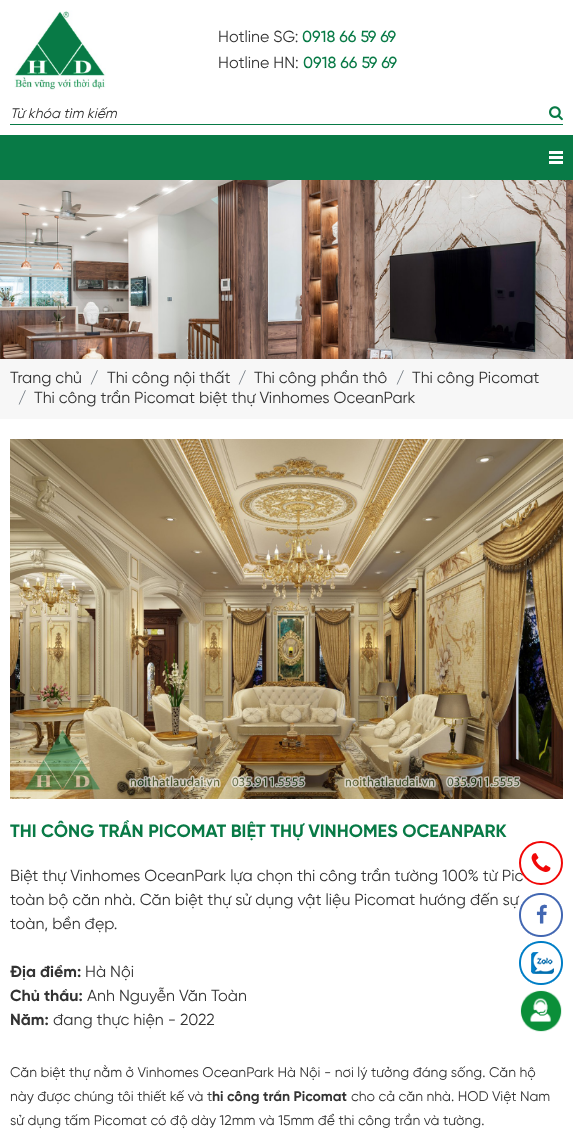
<svg xmlns="http://www.w3.org/2000/svg" xmlns:xlink="http://www.w3.org/1999/xlink" width="573" height="1131" viewBox="0 0 573 1131">
<style>
.cls-1{font:16px Gilroy;fill:#333333}
.cls-2{font:500 16px Gilroy;fill:#087a46}
.cls-3{font:italic 14px Gilroy;fill:#333333}
.cls-4{font:16px Gilroy;fill:#6c757d}
.cls-5{font:bold 18px Gilroy;fill:#087a46}
.cls-6{font:bold 16px Gilroy;fill:#333333}
.cls-7{font:14px Gilroy;fill:#333333}
.cls-8{font:bold 14px Gilroy;fill:#333333}
</style>
<rect width="100%" height="100%" fill="#ffffff"/>
<image xlink:href="image0.png" x="14" y="10" width="92" height="80"/>
<rect fill="#087a46" x="10" y="124" width="553" height="1"/>
<image xlink:href="image1.png" x="549" y="106" width="14" height="15"/>
<rect fill="#087a46" x="0" y="135" width="573" height="45"/>
<rect fill="#ffffff" x="549" y="156" width="14" height="3"/>
<rect fill="#ffffff" x="549" y="151" width="14" height="3"/>
<rect fill="#ffffff" x="549" y="161" width="14" height="3"/>
<image xlink:href="image2.png" x="0" y="180" width="573" height="179"/>
<rect fill="#f7f7f7" x="0" y="359" width="573" height="60"/>
<image xlink:href="image3.png" x="10" y="439" width="553" height="360"/>
<image xlink:href="image6.png" x="519" y="941" width="44" height="44"/>
<image xlink:href="image7.png" x="520" y="990" width="42" height="42"/>
<text class="cls-1" x="218" y="42">Hotline SG:</text>
<text class="cls-2" x="302" y="42">0918 66 59 69</text>
<text class="cls-1" x="218" y="68">Hotline HN:</text>
<text class="cls-2" x="303" y="68">0918 66 59 69</text>
<text class="cls-3" x="10" y="118">Từ khóa tìm kiếm</text>
<text class="cls-1" x="10" y="383">Trang chủ</text>
<text class="cls-4" x="90" y="383">/</text>
<text class="cls-1" x="107" y="383">Thi công nội thất</text>
<text class="cls-4" x="238" y="383">/</text>
<text class="cls-1" x="254" y="383">Thi công phần thô</text>
<text class="cls-4" x="396" y="383">/</text>
<text class="cls-1" x="412" y="383">Thi công Picomat</text>
<text class="cls-4" x="18" y="403">/</text>
<text class="cls-1" x="34" y="403">Thi công trần Picomat biệt thự Vinhomes OceanPark</text>
<text class="cls-5" x="10" y="837">THI CÔNG TRẦN PICOMAT BIỆT THỰ VINHOMES OCEANPARK</text>
<text class="cls-1"><tspan x="10" y="881">Biệt thự Vinhomes OceanPark lựa chọn thi công trần tường 100% từ Pic</tspan><tspan x="10" y="905">toàn bộ căn nhà. Căn biệt thự sử dụng vật liệu Picomat hướng đến sự</tspan><tspan x="10" y="929">toàn, bền đẹp.</tspan></text>
<text class="cls-6" x="10" y="977">Địa điểm:</text>
<text class="cls-1" x="85" y="977">Hà Nội</text>
<text class="cls-6" x="10" y="1001">Chủ thầu:</text>
<text class="cls-1" x="87" y="1001">Anh Nguyễn Văn Toàn</text>
<text class="cls-6" x="10" y="1025">Năm:</text>
<text class="cls-1" x="53" y="1025">đang thực hiện - 2022</text>
<text class="cls-7"><tspan x="10" y="1077">Căn biệt thự nằm ở Vinhomes OceanPark Hà Nội - nơi lý tưởng đáng sống. Căn hộ</tspan><tspan x="10" y="1101">này được chúng tôi thiết kế và t</tspan></text>
<text class="cls-8" x="212" y="1101">hi công trần Picomat</text>
<text class="cls-7" x="351" y="1101">cho cả căn nhà. HOD Việt Nam</text>
<text class="cls-7" x="10" y="1125">sử dụng tấm Picomat có độ dày 12mm và 15mm để thi công trần và tường.</text>
<circle fill="#ffffff" stroke="#f10707" stroke-width="2" cx="541" cy="863" r="21"/>
<image xlink:href="image4.png" x="531" y="853" width="20" height="19"/>
<image xlink:href="image5.png" x="519" y="893" width="44" height="44"/>
</svg>
